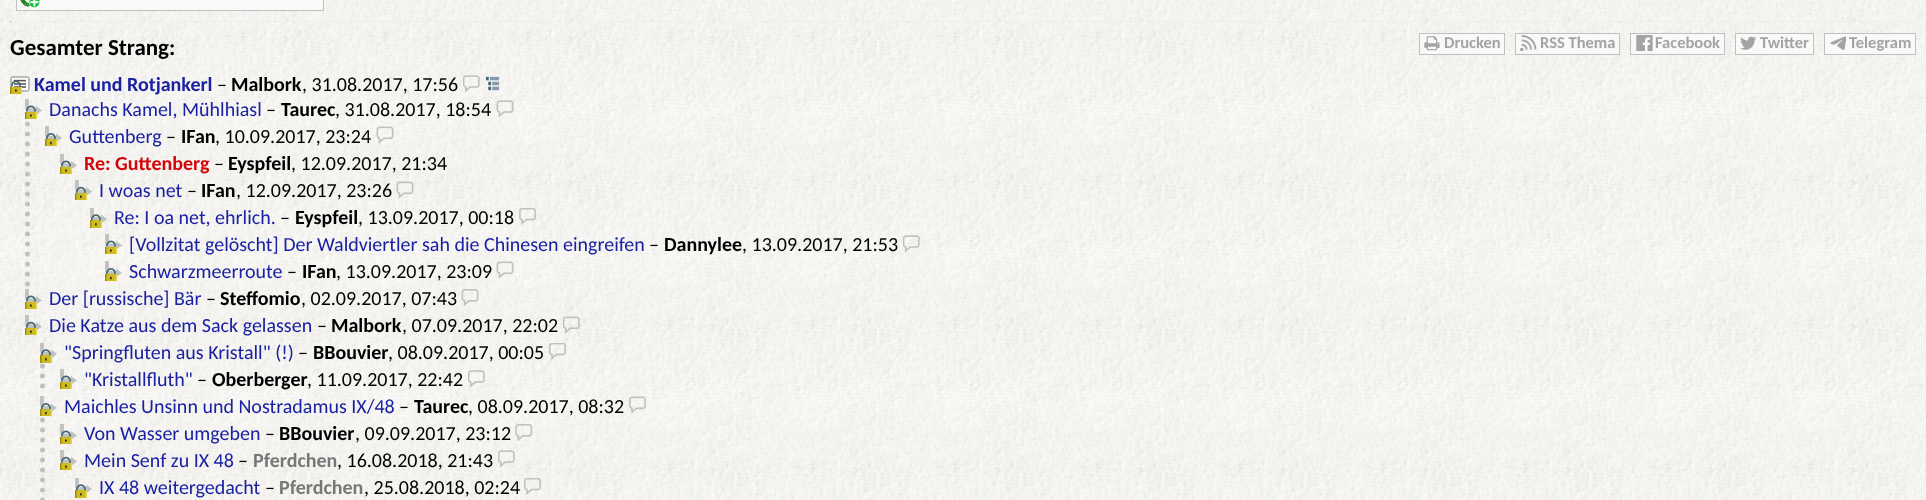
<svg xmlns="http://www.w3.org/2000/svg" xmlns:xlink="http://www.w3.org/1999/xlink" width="1926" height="500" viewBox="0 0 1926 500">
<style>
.cls-1{font:bold 23px Carlito;fill:#000000}
.cls-2{font:bold 16.5px Carlito;fill:#a4a4a4}
.cls-3{font:bold 20px Carlito;fill:#1a21a2}
.cls-4{font:bold 20px Carlito;fill:#000000}
.cls-5{font:20px Carlito;fill:#000000}
.cls-6{font:20px Carlito;fill:#1a21a2}
.cls-7{font:bold 20px Carlito;fill:#d3060a}
.cls-8{font:bold 20px Carlito;fill:#777777}
</style>
<defs>
<clipPath id="clip1"><rect x="90" y="208" width="20" height="20"/></clipPath>
<clipPath id="clip2"><rect x="40" y="343" width="20" height="20"/></clipPath>
<clipPath id="clip3"><rect x="75" y="478" width="20" height="20"/></clipPath>
</defs>
<rect width="100%" height="100%" fill="#ffffff"/>
<image xlink:href="image0.png" x="0" y="0" width="1926" height="500"/>
<rect fill="#f9f9f9" stroke="#c0c0c0" x="16.5" y="-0.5" width="307" height="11"/>
<image xlink:href="image1.png" x="20" y="0" width="20" height="8"/>
<rect fill="#eeeeee" x="10" y="21" width="1906" height="1"/>
<rect fill="#9f9f9f" x="10" y="21" width="1" height="1"/>
<rect fill="#f9f9f9" stroke="#c0c0c0" x="1419.5" y="33.5" width="85" height="21"/>
<image xlink:href="image2.png" x="1424" y="36" width="16" height="15"/>
<rect fill="#f9f9f9" stroke="#c0c0c0" x="1515.5" y="33.5" width="104" height="21"/>
<image xlink:href="image3.png" x="1520" y="35" width="17" height="16"/>
<rect fill="#f9f9f9" stroke="#c0c0c0" x="1630.5" y="33.5" width="94" height="21"/>
<image xlink:href="image4.png" x="1636" y="35" width="17" height="16"/>
<rect fill="#f9f9f9" stroke="#c0c0c0" x="1735.5" y="33.5" width="78" height="21"/>
<image xlink:href="image5.png" x="1740" y="36" width="16" height="14"/>
<rect fill="#f9f9f9" stroke="#c0c0c0" x="1824.5" y="33.5" width="91" height="21"/>
<image xlink:href="image6.png" x="1830" y="36" width="16" height="14"/>
<image xlink:href="image7.png" x="10" y="76" width="20" height="16"/>
<image xlink:href="image8.png" x="463" y="75" width="17" height="18"/>
<image xlink:href="image9.png" x="485" y="76" width="15" height="15"/>
<image xlink:href="image10.png" x="10" y="80" width="12" height="14"/>
<path fill="none" stroke="#bfc1be" stroke-width="3.8" d="M27 99V107C27 109 28.5 110.5 30 110.5H36"/>
<path fill="#bfc1be" d="M36 106L42 110.5L36 114.5Z"/>
<image xlink:href="image11.png" x="25" y="105" width="12" height="14"/>
<image xlink:href="image12.png" x="496" y="100" width="18" height="18"/>
<path fill="none" stroke="#bfc1be" stroke-width="5" stroke-linecap="round" stroke-dasharray="0 10" d="M27.5 124V285"/>
<path fill="none" stroke="#bfc1be" stroke-width="3.8" d="M47 126V134.5C47 136.5 48.5 138 50 138H56"/>
<path fill="#bfc1be" d="M56 133.5L62 138L56 142Z"/>
<image xlink:href="image13.png" x="45" y="133" width="12" height="13"/>
<image xlink:href="image14.png" x="376" y="126" width="18" height="18"/>
<path fill="none" stroke="#bfc1be" stroke-width="3.8" d="M62 154V162C62 164 63.5 165.5 65 165.5H71"/>
<path fill="#bfc1be" d="M71 161L77 165.5L71 169.5Z"/>
<image xlink:href="image15.png" x="60" y="160" width="12" height="14"/>
<path fill="none" stroke="#bfc1be" stroke-width="3.8" d="M77 180V188.5C77 190 78.5 191.5 80 191.5H86"/>
<path fill="#bfc1be" d="M86 187L92 191.5L86 196Z"/>
<image xlink:href="image16.png" x="75" y="186" width="12" height="14"/>
<image xlink:href="image17.png" x="396" y="181" width="18" height="18"/>
<g clip-path="url(#clip1)">
<path fill="none" stroke="#bfc1be" stroke-width="3.8" d="M92 207.5V216C92 217.5 93.5 219 95 219H101"/>
</g>
<path fill="#bfc1be" d="M101 214.5L107 219L101 223.5Z"/>
<image xlink:href="image18.png" x="90" y="214" width="12" height="14"/>
<image xlink:href="image19.png" x="519" y="208" width="17" height="17"/>
<path fill="none" stroke="#bfc1be" stroke-width="3.8" d="M107 234V242C107 244 108.5 245.5 110 245.5H116"/>
<path fill="#bfc1be" d="M116 241L122 245.5L116 249.5Z"/>
<image xlink:href="image20.png" x="105" y="240" width="12" height="14"/>
<image xlink:href="image21.png" x="903" y="235" width="17" height="18"/>
<path fill="none" stroke="#bfc1be" stroke-width="3.8" d="M107 261V269.5C107 271.5 108.5 273 110 273H116"/>
<path fill="#bfc1be" d="M116 268.5L122 273L116 277Z"/>
<image xlink:href="image22.png" x="105" y="268" width="12" height="13"/>
<image xlink:href="image23.png" x="496" y="261" width="18" height="18"/>
<path fill="none" stroke="#bfc1be" stroke-width="3.8" d="M27 289V297C27 299 28.5 300.5 30 300.5H36"/>
<path fill="#bfc1be" d="M36 296L42 300.5L36 304.5Z"/>
<image xlink:href="image24.png" x="25" y="295" width="12" height="14"/>
<image xlink:href="image25.png" x="461" y="289" width="18" height="17"/>
<path fill="none" stroke="#bfc1be" stroke-width="3.8" d="M27 315V323.5C27 325 28.5 326.5 30 326.5H36"/>
<path fill="#bfc1be" d="M36 322L42 326.5L36 331Z"/>
<image xlink:href="image26.png" x="25" y="321" width="12" height="14"/>
<image xlink:href="image27.png" x="563" y="316" width="17" height="18"/>
<g clip-path="url(#clip2)">
<path fill="none" stroke="#bfc1be" stroke-width="3.8" d="M42 342.5V351C42 352.5 43.5 354 45 354H51"/>
</g>
<path fill="#bfc1be" d="M51 349.5L57 354L51 358.5Z"/>
<image xlink:href="image28.png" x="40" y="349" width="12" height="14"/>
<image xlink:href="image29.png" x="549" y="343" width="17" height="17"/>
<path fill="none" stroke="#bfc1be" stroke-width="5" stroke-linecap="round" stroke-dasharray="0 10" d="M42.5 366V394"/>
<path fill="none" stroke="#bfc1be" stroke-width="3.8" d="M62 369V377C62 379 63.5 380.5 65 380.5H71"/>
<path fill="#bfc1be" d="M71 376L77 380.5L71 384.5Z"/>
<image xlink:href="image30.png" x="60" y="375" width="12" height="14"/>
<image xlink:href="image31.png" x="468" y="370" width="17" height="18"/>
<path fill="none" stroke="#bfc1be" stroke-width="3.8" d="M42 396V404.5C42 406.5 43.5 408 45 408H51"/>
<path fill="#bfc1be" d="M51 403.5L57 408L51 412Z"/>
<image xlink:href="image32.png" x="40" y="403" width="12" height="13"/>
<image xlink:href="image33.png" x="629" y="396" width="17" height="18"/>
<path fill="none" stroke="#bfc1be" stroke-width="5" stroke-linecap="round" stroke-dasharray="0 10" d="M42.5 420V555"/>
<path fill="none" stroke="#bfc1be" stroke-width="3.8" d="M62 424V432C62 434 63.5 435.5 65 435.5H71"/>
<path fill="#bfc1be" d="M71 431L77 435.5L71 439.5Z"/>
<image xlink:href="image34.png" x="60" y="430" width="12" height="14"/>
<image xlink:href="image35.png" x="515" y="424" width="18" height="17"/>
<path fill="none" stroke="#bfc1be" stroke-width="3.8" d="M62 450V458.5C62 460 63.5 461.5 65 461.5H71"/>
<path fill="#bfc1be" d="M71 457L77 461.5L71 466Z"/>
<image xlink:href="image36.png" x="60" y="456" width="12" height="14"/>
<image xlink:href="image37.png" x="498" y="450" width="17" height="18"/>
<g clip-path="url(#clip3)">
<path fill="none" stroke="#bfc1be" stroke-width="3.8" d="M77 477.5V486C77 487.5 78.5 489 80 489H86"/>
</g>
<path fill="#bfc1be" d="M86 484.5L92 489L86 493.5Z"/>
<image xlink:href="image38.png" x="75" y="484" width="12" height="14"/>
<image xlink:href="image39.png" x="524" y="478" width="17" height="17"/>
<text class="cls-1" x="10" y="55">Gesamter Strang:</text>
<text class="cls-2" x="1444" y="48">Drucken</text>
<text class="cls-2" x="1540" y="48">RSS Thema</text>
<text class="cls-2" x="1655" y="48">Facebook</text>
<text class="cls-2" x="1760" y="48">Twitter</text>
<text class="cls-2" x="1849" y="48">Telegram</text>
<text class="cls-3" x="34" y="91">Kamel und Rotjankerl</text>
<text class="cls-4" x="231" y="91">Malbork</text>
<text class="cls-5" x="302" y="91">, 31.08.2017, 17:56</text>
<text class="cls-5" x="217" y="91">–</text>
<text class="cls-6" x="49" y="116">Danachs Kamel, Mühlhiasl</text>
<text class="cls-5" x="266" y="116">–</text>
<text class="cls-4" x="281" y="116">Taurec</text>
<text class="cls-5" x="335" y="116">, 31.08.2017, 18:54</text>
<text class="cls-6" x="69" y="143">Guttenberg</text>
<text class="cls-5" x="166" y="143">–</text>
<text class="cls-4" x="181" y="143">IFan</text>
<text class="cls-5" x="215" y="143">, 10.09.2017, 23:24</text>
<text class="cls-7" x="84" y="170">Re: Guttenberg</text>
<text class="cls-5" x="214" y="170">–</text>
<text class="cls-4" x="228" y="170">Eyspfeil</text>
<text class="cls-5" x="291" y="170">, 12.09.2017, 21:34</text>
<text class="cls-6" x="99" y="197">I woas net</text>
<text class="cls-5" x="187" y="197">–</text>
<text class="cls-4" x="201" y="197">IFan</text>
<text class="cls-5" x="236" y="197">, 12.09.2017, 23:26</text>
<text class="cls-6" x="114" y="224">Re: I oa net, ehrlich.</text>
<text class="cls-5" x="280" y="224">–</text>
<text class="cls-4" x="295" y="224">Eyspfeil</text>
<text class="cls-5" x="358" y="224">, 13.09.2017, 00:18</text>
<text class="cls-6" x="129" y="251">[Vollzitat gelöscht] Der Waldviertler sah die Chinesen eingreifen</text>
<text class="cls-5" x="649" y="251">–</text>
<text class="cls-4" x="664" y="251">Dannylee</text>
<text class="cls-5" x="742" y="251">, 13.09.2017, 21:53</text>
<text class="cls-6" x="129" y="278">Schwarzmeerroute</text>
<text class="cls-5" x="287" y="278">–</text>
<text class="cls-4" x="302" y="278">IFan</text>
<text class="cls-5" x="336" y="278">, 13.09.2017, 23:09</text>
<text class="cls-6" x="49" y="305">Der [russische] Bär</text>
<text class="cls-5" x="206" y="305">–</text>
<text class="cls-4" x="220" y="305">Steffomio</text>
<text class="cls-5" x="301" y="305">, 02.09.2017, 07:43</text>
<text class="cls-6" x="49" y="332">Die Katze aus dem Sack gelassen</text>
<text class="cls-5" x="317" y="332">–</text>
<text class="cls-4" x="331" y="332">Malbork</text>
<text class="cls-5" x="402" y="332">, 07.09.2017, 22:02</text>
<text class="cls-6" x="64" y="359">"Springfluten aus Kristall" (!)</text>
<text class="cls-5" x="298" y="359">–</text>
<text class="cls-4" x="313" y="359">BBouvier</text>
<text class="cls-5" x="388" y="359">, 08.09.2017, 00:05</text>
<text class="cls-6" x="84" y="386">"Kristallfluth"</text>
<text class="cls-5" x="197" y="386">–</text>
<text class="cls-4" x="212" y="386">Oberberger</text>
<text class="cls-5" x="307" y="386">, 11.09.2017, 22:42</text>
<text class="cls-6" x="64" y="413">Maichles Unsinn und Nostradamus IX/48</text>
<text class="cls-5" x="399" y="413">–</text>
<text class="cls-4" x="414" y="413">Taurec</text>
<text class="cls-5" x="468" y="413">, 08.09.2017, 08:32</text>
<text class="cls-6" x="84" y="440">Von Wasser umgeben</text>
<text class="cls-5" x="265" y="440">–</text>
<text class="cls-4" x="279" y="440">BBouvier</text>
<text class="cls-5" x="355" y="440">, 09.09.2017, 23:12</text>
<text class="cls-6" x="84" y="467">Mein Senf zu IX 48</text>
<text class="cls-5" x="238" y="467">–</text>
<text class="cls-8" x="253" y="467">Pferdchen</text>
<text class="cls-5" x="337" y="467">, 16.08.2018, 21:43</text>
<text class="cls-6" x="99" y="494">IX 48 weitergedacht</text>
<text class="cls-5" x="265" y="494">–</text>
<text class="cls-8" x="279" y="494">Pferdchen</text>
<text class="cls-5" x="364" y="494">, 25.08.2018, 02:24</text>
</svg>
